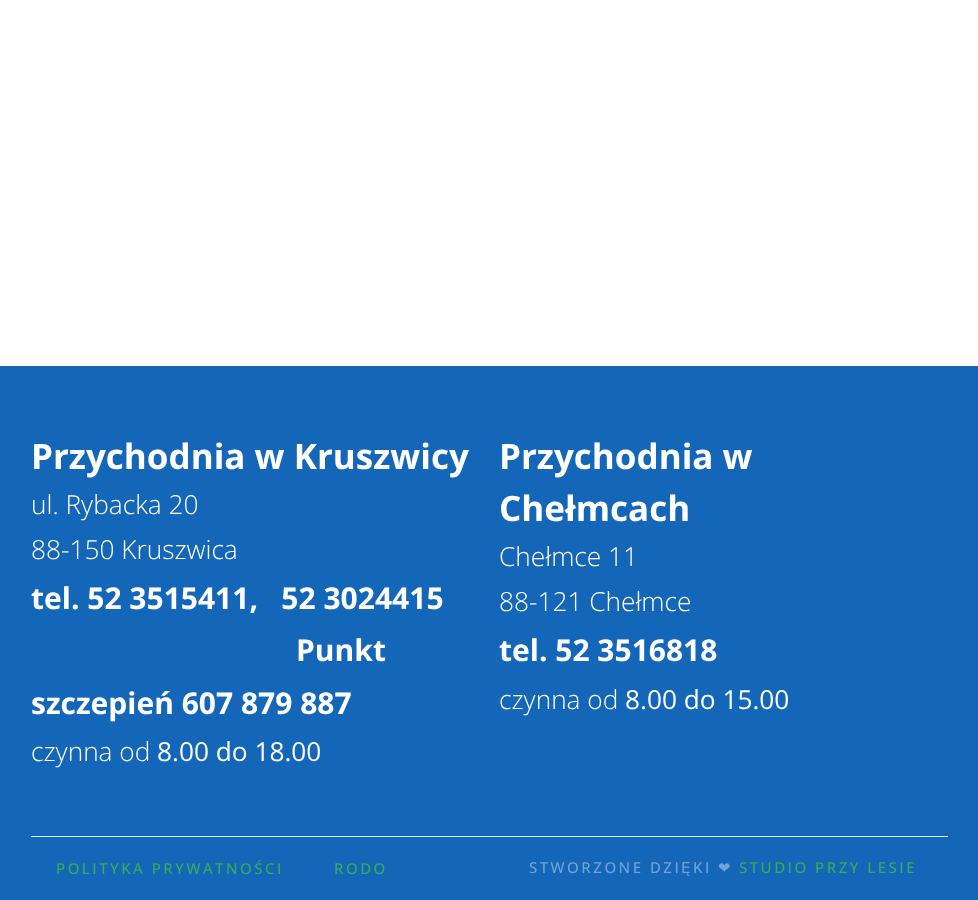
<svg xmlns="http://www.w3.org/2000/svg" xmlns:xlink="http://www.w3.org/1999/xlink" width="978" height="900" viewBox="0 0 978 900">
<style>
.cls-1{font:bold 35px Open Sans;fill:#ffffff}
.cls-2{font:300 26.25px Open Sans;fill:#ffffff}
.cls-3{font:bold 30px Open Sans;fill:#ffffff}
.cls-4{font:26.25px Open Sans;fill:#ffffff}
.cls-5{font:500 15px Open Sans;letter-spacing:2.5px;fill:#36ad59}
.cls-6{font:500 15px Open Sans;letter-spacing:2.5px;fill:#72a3d4}
.cls-7{font:15px DejaVu Sans;letter-spacing:2.5px;fill:#72a3d4}
</style>
<rect width="100%" height="100%" fill="#ffffff"/>
<rect fill="#1466b8" x="0" y="366" width="978" height="534"/>
<rect fill="#eeeeee" x="31" y="836" width="917" height="1"/>
<text class="cls-1" x="31" y="469">Przychodnia w Kruszwicy</text>
<text class="cls-2"><tspan x="31" y="514">ul. Rybacka 20</tspan><tspan x="31" y="559">88-150 Kruszwica</tspan></text>
<text class="cls-3" xml:space="preserve" x="31" y="609">tel. 52 3515411,   52 3024415</text>
<text class="cls-3" x="296" y="661">Punkt</text>
<text class="cls-3" x="31" y="714">szczepień 607 879 887</text>
<text class="cls-2" x="31" y="761">czynna od</text>
<text class="cls-4" x="157" y="761">8.00 do 18.00</text>
<text class="cls-1"><tspan x="499" y="469">Przychodnia w</tspan><tspan x="499" y="521">Chełmcach</tspan></text>
<text class="cls-2"><tspan x="499" y="566">Chełmce 11</tspan><tspan x="499" y="611">88-121 Chełmce</tspan></text>
<text class="cls-3" x="499" y="661">tel. 52 3516818</text>
<text class="cls-2" x="499" y="709">czynna od</text>
<text class="cls-4" x="625" y="709">8.00 do 15.00</text>
<text class="cls-5" x="56" y="874">POLITYKA PRYWATNOŚCI</text>
<text class="cls-5" x="334" y="874">RODO</text>
<text class="cls-6" x="529" y="873">STWORZONE DZI</text>
<text class="cls-7" x="681" y="873">Ę</text>
<text class="cls-6" x="693" y="873">KI</text>
<text class="cls-7" x="718" y="873">❤</text>
<text class="cls-5" x="739" y="873">STUDIO PRZY LESIE</text>
</svg>
